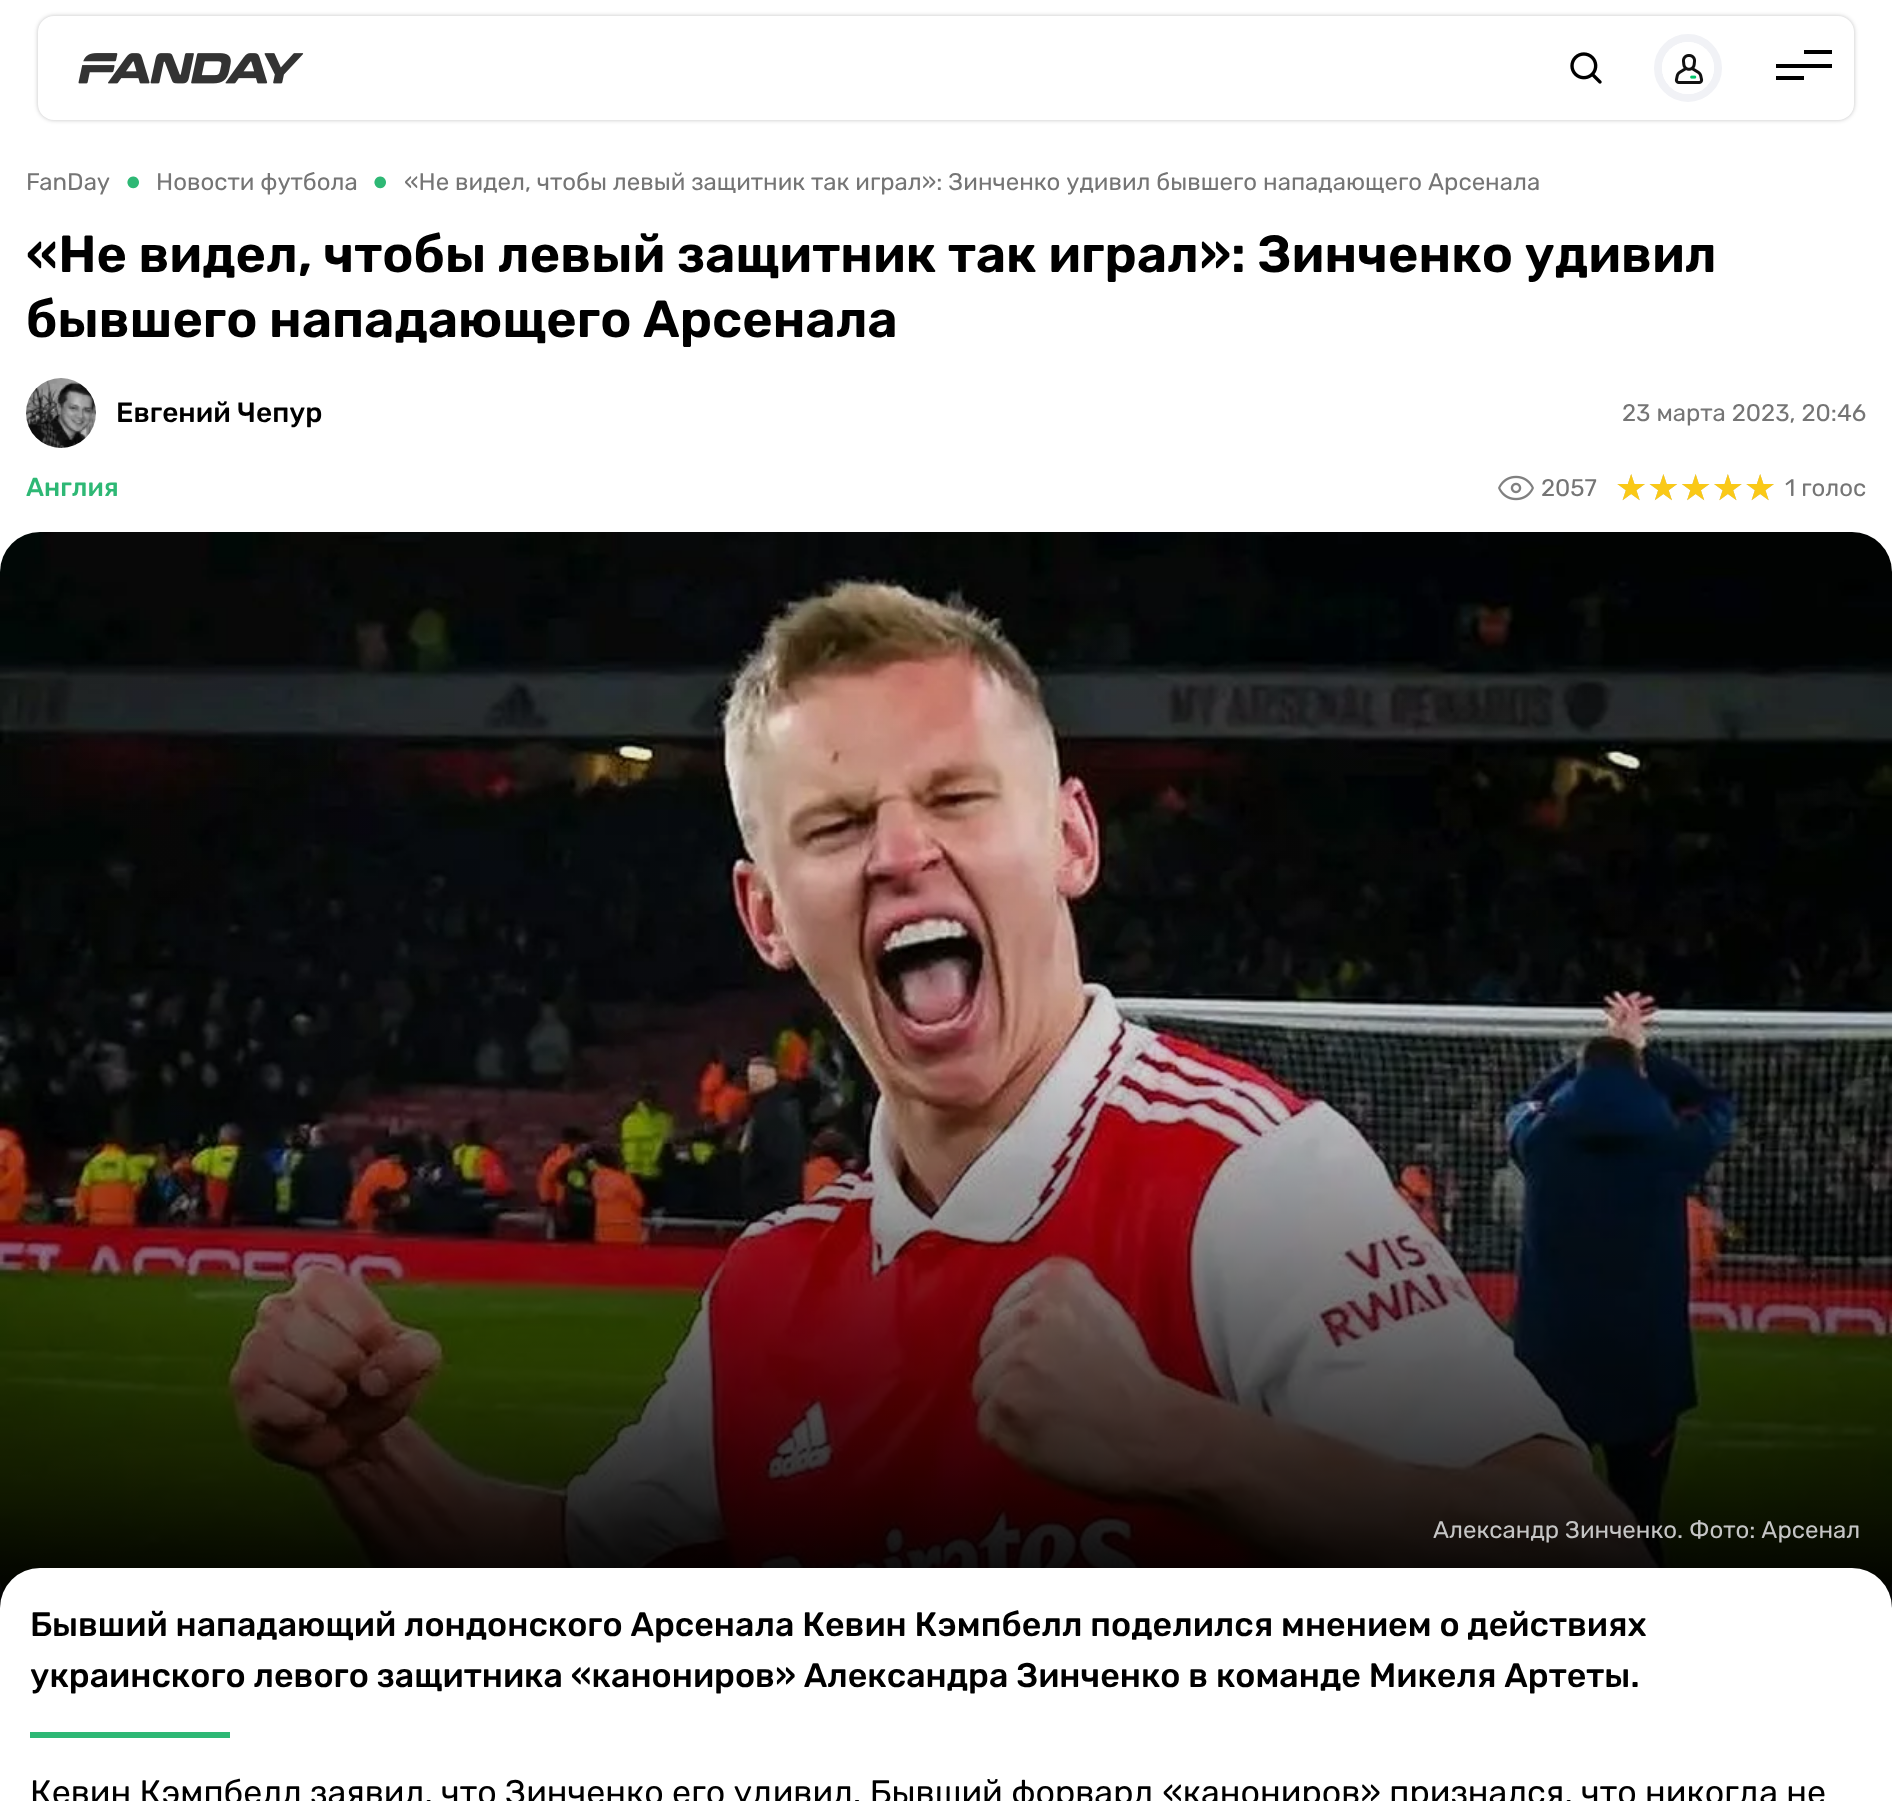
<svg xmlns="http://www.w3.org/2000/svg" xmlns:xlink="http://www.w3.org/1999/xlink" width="1892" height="1801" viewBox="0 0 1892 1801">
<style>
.cls-1{font:300 24px 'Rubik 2';fill:#757575}
.cls-2{font:600 48px Rubik;fill:#2eb875}
.cls-3{font:600 52px Rubik;fill:#000000}
.cls-4{font:300 28px Rubik;fill:#000000}
.cls-5{font:300 26px Rubik;fill:#2eb875}
.cls-6{font:36px DejaVu Sans;fill:#c5c5c5}
.cls-7{font:36px DejaVu Sans;fill:#fac917}
.cls-8{font:300 24px 'Rubik 2';fill:#c5c5c5}
.cls-9{font:300 34px Rubik;fill:#000000}
.cls-10{font:300 34px 'Rubik 2';fill:#000000}
</style>
<defs>
<linearGradient id="g1" gradientUnits="userSpaceOnUse" x1="946" y1="1608" x2="946" y2="532"><stop offset="0" stop-color="#000000"/><stop offset="0.5" stop-color="#000000" stop-opacity="0.18"/><stop offset="1" stop-color="#000000" stop-opacity="0"/></linearGradient>
</defs>
<rect width="100%" height="100%" fill="#ffffff"/>
<rect fill="#202124" fill-opacity="0.28" filter="blur(2px)" x="38" y="16" width="1816" height="104" rx="16"/>
<rect fill="#ffffff" x="38" y="16" width="1816" height="104" rx="16"/>
<image xlink:href="image0.png" x="78" y="53" width="226" height="31"/>
<image xlink:href="image1.png" x="1570" y="52" width="32" height="32"/>
<circle fill="none" stroke="#f1f2f6" stroke-width="8" cx="1688" cy="68" r="30"/>
<circle fill="#ffffff" cx="1688" cy="68" r="26"/>
<image xlink:href="image2.png" x="1674" y="54" width="30" height="30"/>
<rect fill="#000000" x="1804" y="50" width="28" height="4"/>
<rect fill="#000000" x="1776" y="64" width="56" height="4"/>
<rect fill="#000000" x="1776" y="76" width="28" height="4"/>
<image xlink:href="image3.png" x="26" y="378" width="70" height="70"/>
<image xlink:href="image4.png" x="1498" y="475" width="36" height="26"/>
<image xlink:href="image5.png" x="0" y="532" width="1892" height="1059"/>
<rect fill="url(#g1)" x="0" y="596" width="1892" height="1012"/>
<rect fill="#ffffff" x="0" y="1568" width="1892" height="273" rx="40"/>
<rect fill="#2eb875" x="30" y="1732" width="200" height="6"/>
<text class="cls-1" x="26" y="190">FanDay</text>
<text class="cls-2" x="124" y="198">•</text>
<text class="cls-1" x="156" y="190">Новости футбола</text>
<text class="cls-2" x="371" y="198">•</text>
<text class="cls-1" x="404" y="190">«Не видел, чтобы левый защитник так играл»: Зинченко удивил бывшего нападающего Арсенала</text>
<text class="cls-3"><tspan x="26" y="272">«Не видел, чтобы левый защитник так играл»: Зинченко удивил</tspan><tspan x="26" y="337">бывшего нападающего Арсенала</tspan></text>
<text class="cls-4" x="116" y="422">Евгений Чепур</text>
<text class="cls-1" x="1622" y="421">23 марта 2023, 20:46</text>
<text class="cls-5" x="26" y="496">Англия</text>
<text class="cls-1" x="1541" y="496">2057</text>
<text class="cls-6" x="1615" y="500">★★★★★</text>
<text class="cls-7" x="1615" y="500">★★★★★</text>
<text class="cls-1" x="1785" y="496">1 голос</text>
<text class="cls-8" x="1433" y="1538">Александр Зинченко. Фото: Арсенал</text>
<text class="cls-9"><tspan x="30" y="1636">Бывший нападающий лондонского Арсенала Кевин Кэмпбелл поделился мнением о действиях</tspan><tspan x="30" y="1687">украинского левого защитника «канониров» Александра Зинченко в команде Микеля Артеты.</tspan></text>
<text class="cls-10" x="30" y="1804">Кевин Кэмпбелл заявил, что Зинченко его удивил. Бывший форвард «канониров» признался, что никогда не</text>
</svg>
